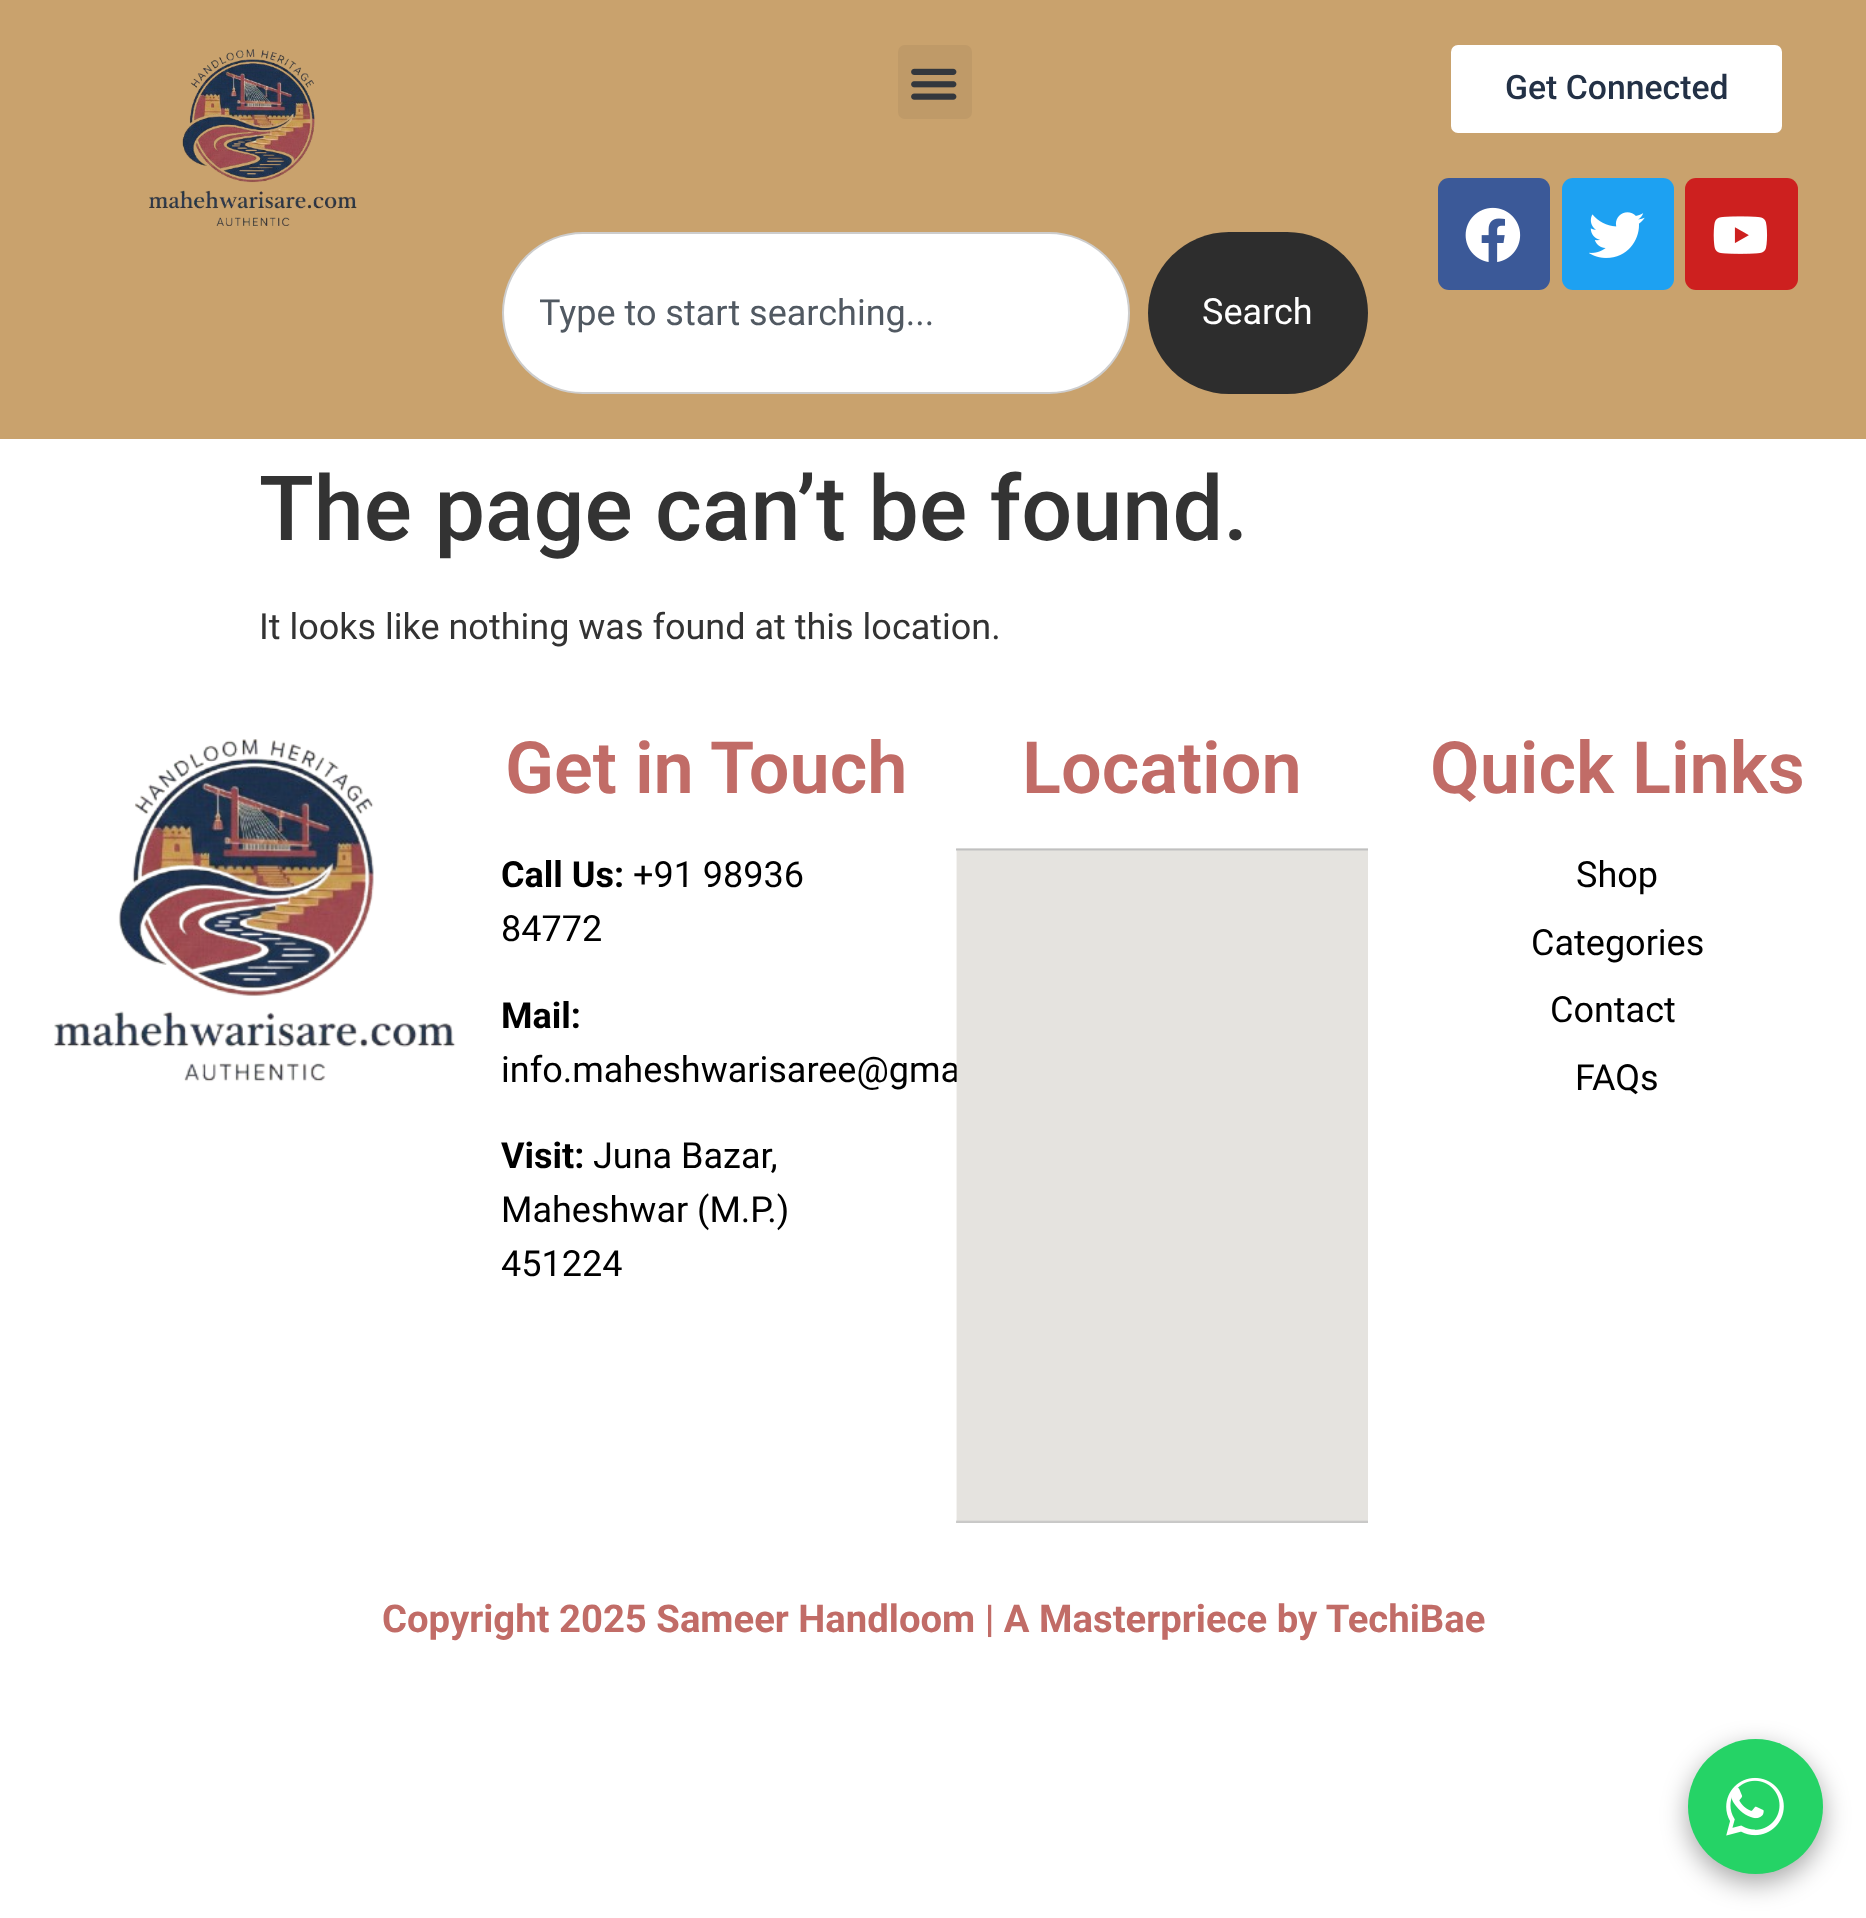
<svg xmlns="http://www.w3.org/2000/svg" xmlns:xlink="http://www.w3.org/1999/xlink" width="1866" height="1918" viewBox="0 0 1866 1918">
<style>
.cls-1{font:500 33.75px Roboto;fill:#233146}
.cls-2{font:36px Roboto;fill:#515962}
.cls-3{font:36px Roboto;fill:#ffffff}
.cls-4{font:500 90px Roboto;fill:#333333}
.cls-5{font:36px Roboto;fill:#333333}
.cls-6{font:600 72px Roboto;fill:#c16c67}
.cls-7{font:bold 36px Roboto;fill:#000000}
.cls-8{font:36px Roboto;fill:#000000}
.cls-9{font:bold 38.25px Roboto;fill:#c16c67}
</style>
<defs>
<clipPath id="clip1"><rect x="540" y="293" width="524" height="42"/></clipPath>
</defs>
<rect width="100%" height="100%" fill="#ffffff"/>
<rect fill="#c9a26d" x="0" y="0" width="1866" height="439"/>
<image xlink:href="image0.png" x="149" y="49" width="208" height="178"/>
<rect fill="#ffffff" x="1451" y="45" width="331" height="88" rx="7"/>
<rect fill="#3b5998" x="1438" y="178" width="112" height="112" rx="11"/>
<image xlink:href="image1.png" x="1465" y="207" width="56" height="55"/>
<rect fill="#1da1f2" x="1562" y="178" width="112" height="112" rx="11"/>
<image xlink:href="image2.png" x="1589" y="212" width="56" height="46"/>
<rect fill="#cd201f" x="1685" y="178" width="113" height="112" rx="11"/>
<image xlink:href="image3.png" x="1713" y="216" width="55" height="38"/>
<rect fill="#bf9a68" x="898" y="45" width="74" height="74" rx="7"/>
<image xlink:href="image4.png" x="911" y="68" width="46" height="32"/>
<rect fill="#ffffff" stroke="#cdcdcd" stroke-width="2" x="503" y="233" width="626" height="160" rx="80"/>
<rect fill="#2d2d2d" x="1148" y="232" width="220" height="162" rx="81"/>
<image xlink:href="image5.png" x="54" y="739" width="402" height="343"/>
<rect fill="#000000" fill-opacity="0.35" filter="blur(13.5px)" x="1688" y="1748" width="135" height="135" rx="67.5"/>
<circle fill="#25d366" cx="1755.5" cy="1806.5" r="67.5"/>
<image xlink:href="image7.png" x="1726" y="1777" width="58" height="59"/>
<text class="cls-1" x="1505" y="99">Get Connected</text>
<g clip-path="url(#clip1)">
<text class="cls-2" x="539" y="325">Type to start searching...</text>
</g>
<text class="cls-3" x="1202" y="324">Search</text>
<text class="cls-4" x="259" y="540">The page can’t be found.</text>
<text class="cls-5" x="259" y="639">It looks like nothing was found at this location.</text>
<text class="cls-6" x="505" y="793">Get in Touch</text>
<text class="cls-7" x="501" y="887">Call Us:</text>
<text class="cls-8" x="633" y="887">+91 98936</text>
<text class="cls-8" x="501" y="941">84772</text>
<text class="cls-7" x="501" y="1028">Mail:</text>
<text class="cls-8" x="501" y="1082">info.maheshwarisaree@gma</text>
<text class="cls-7" x="501" y="1168">Visit:</text>
<text class="cls-8" x="593" y="1168">Juna Bazar,</text>
<text class="cls-8"><tspan x="501" y="1222">Maheshwar (M.P.)</tspan><tspan x="501" y="1276">451224</tspan></text>
<text class="cls-6" x="1022" y="793">Location</text>
<image xlink:href="image6.png" x="956" y="848" width="412" height="675"/>
<text class="cls-6" x="1430" y="793">Quick Links</text>
<text class="cls-8" x="1576" y="887">Shop</text>
<text class="cls-8" x="1531" y="955">Categories</text>
<text class="cls-8" x="1550" y="1022">Contact</text>
<text class="cls-8" x="1575" y="1090">FAQs</text>
<text class="cls-9" x="382" y="1632">Copyright 2025 Sameer Handloom | A Masterpriece by TechiBae</text>
</svg>
